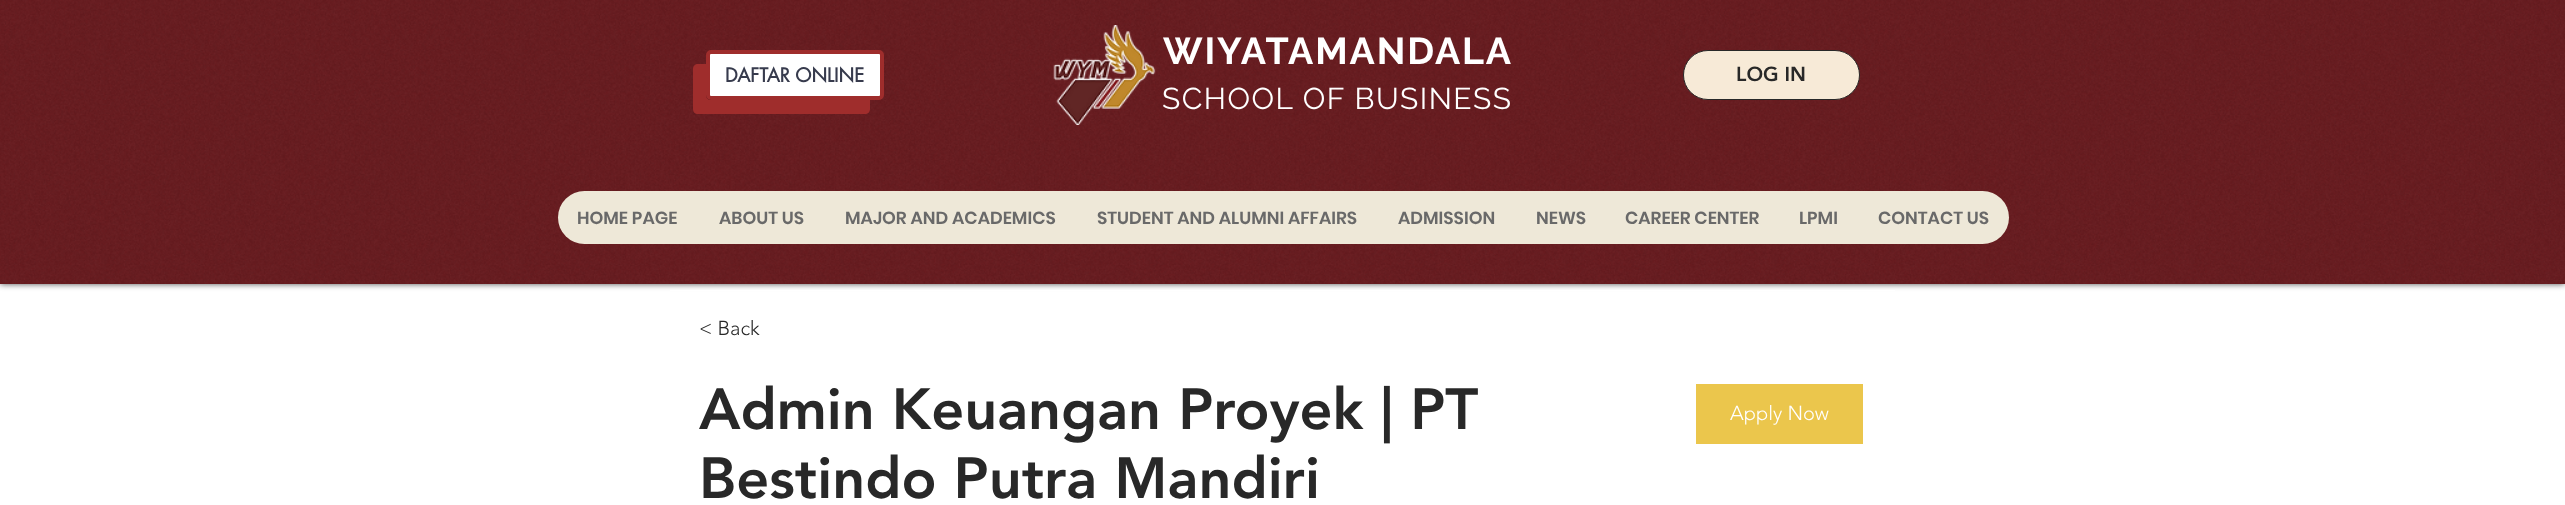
<svg xmlns="http://www.w3.org/2000/svg" xmlns:xlink="http://www.w3.org/1999/xlink" width="2565" height="505" viewBox="0 0 2565 505">
<style>
.cls-1{font:bold 18.75px futura;fill:#373b4d}
.cls-2{font:bold 37.5px Raleway;letter-spacing:1.9px;fill:#ffffff}
.cls-3{font:30px Raleway;letter-spacing:1.5px;fill:#ffffff}
.cls-4{font:900 20px 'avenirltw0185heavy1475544';fill:#282828}
.cls-5{font:600 17.5px Poppins;fill:#696969}
.cls-6{font:300 20px 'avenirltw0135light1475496';fill:#282828}
.cls-7{font:900 57.5px 'avenirltw0185heavy1475544';fill:#282828}
.cls-8{font:300 20px 'avenirltw0135light1475496';fill:#ffffff}
</style>
<rect width="100%" height="100%" fill="#ffffff"/>
<rect fill="#000000" fill-opacity="0.7" filter="blur(3px)" x="0" y="0" width="2565" height="284"/>
<rect fill="#691c20" x="0" y="0" width="2565" height="284"/>
<image xlink:href="image0.png" x="0" y="0" width="2565" height="284"/>
<path fill="#9f2d2c" d="M698 64C695 64 693 66 693 69V109C693 112 695 114 698 114H865C868 114 870 112 870 109V100H711C708 100 706 98 706 95V64Z"/>
<rect fill="#ffffff" stroke="#9f2d2c" stroke-width="4" x="708" y="52" width="174" height="46" rx="3"/>
<image xlink:href="image1.png" x="1053" y="25" width="103" height="100"/>
<rect fill="#f7ead7" stroke="#282828" x="1683.5" y="50.5" width="176" height="49" rx="24.5"/>
<rect fill="#eee8d8" x="558" y="191" width="1451" height="53" rx="26.5"/>
<rect fill="#ffffff" x="670" y="290" width="1225" height="1"/>
<rect fill="#ebc64c" x="1696" y="384" width="167" height="60"/>
<text class="cls-1" x="725" y="82">DAFTAR ONLINE</text>
<text class="cls-2" x="1163" y="64">WIYATAMANDALA</text>
<text class="cls-3" x="1162" y="109">SCHOOL OF BUSINESS</text>
<text class="cls-4" x="1736" y="81">LOG IN</text>
<text class="cls-5" x="577" y="224">HOME PAGE</text>
<text class="cls-5" x="719" y="224">ABOUT US</text>
<text class="cls-5" x="845" y="224">MAJOR AND ACADEMICS</text>
<text class="cls-5" x="1097" y="224">STUDENT AND ALUMNI AFFAIRS</text>
<text class="cls-5" x="1398" y="224">ADMISSION</text>
<text class="cls-5" x="1536" y="224">NEWS</text>
<text class="cls-5" x="1625" y="224">CAREER CENTER</text>
<text class="cls-5" x="1799" y="224">LPMI</text>
<text class="cls-5" x="1878" y="224">CONTACT US</text>
<text class="cls-6" x="699" y="335">&lt; Back</text>
<text class="cls-7"><tspan x="699" y="429">Admin Keuangan Proyek | PT</tspan><tspan x="699" y="498">Bestindo Putra Mandiri</tspan></text>
<text class="cls-8" x="1730" y="420">Apply Now</text>
</svg>
